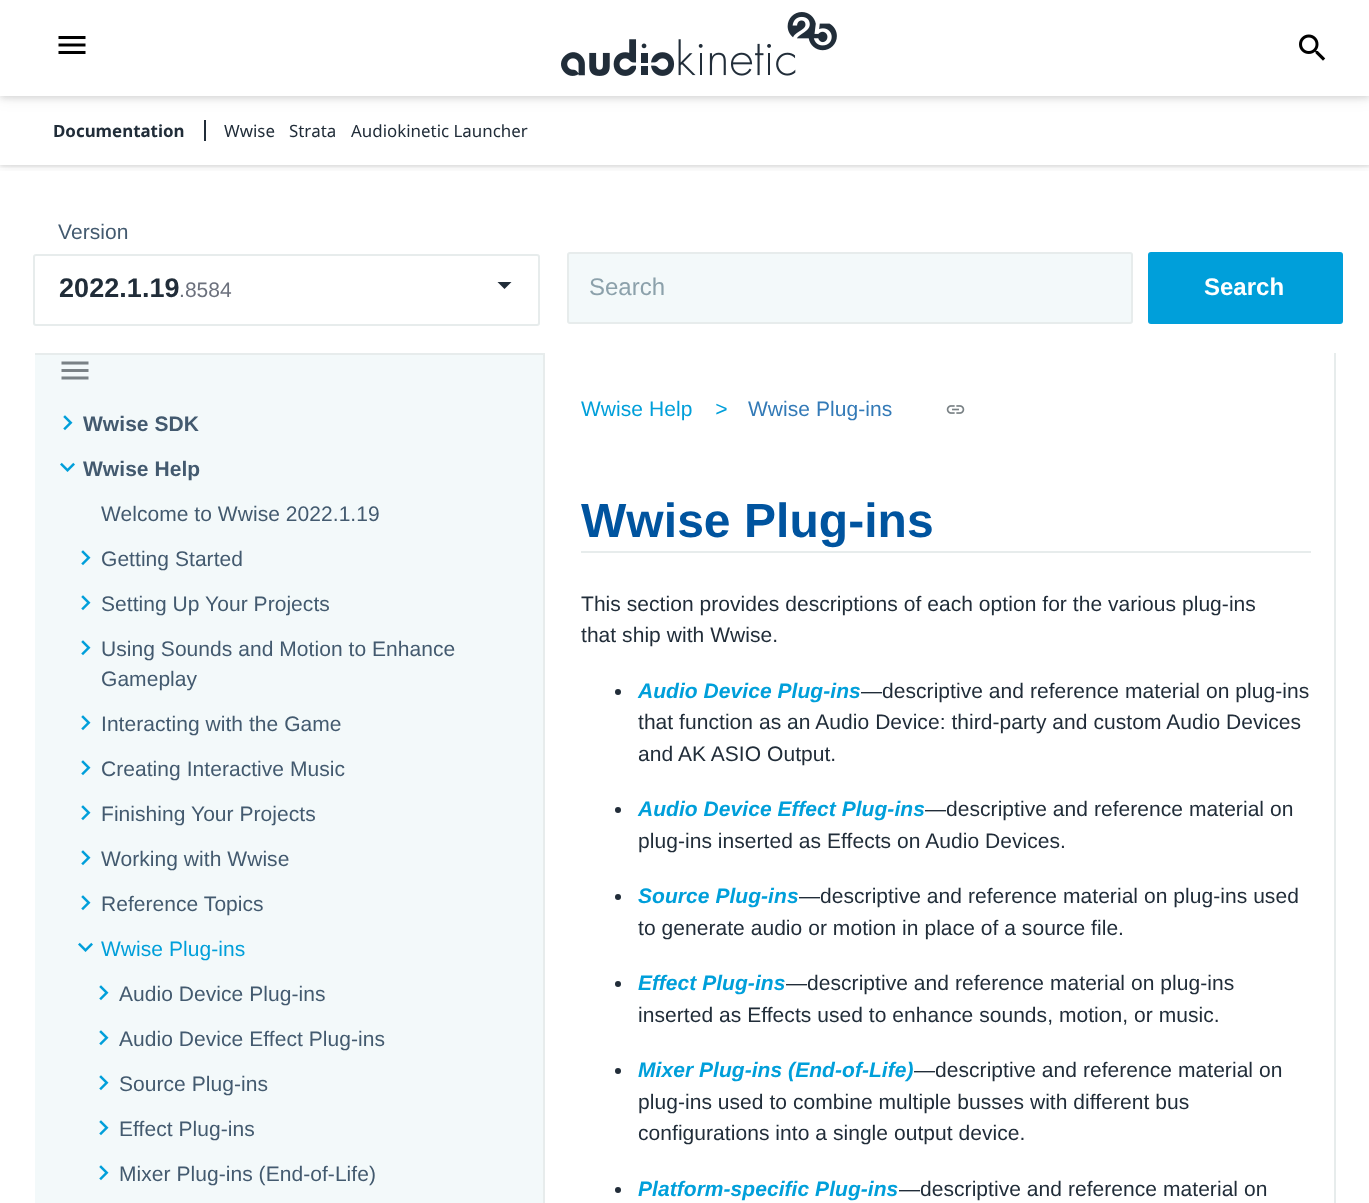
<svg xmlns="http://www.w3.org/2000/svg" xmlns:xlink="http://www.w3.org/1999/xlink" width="1369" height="1203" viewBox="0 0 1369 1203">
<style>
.cls-1{font:bold 16.9px Noto Sans;fill:#212d39}
.cls-2{font:16.9px Noto Sans;fill:#212d39}
.cls-3{font:21px Liberation Sans;letter-spacing:0.05px;fill:#435a6f}
.cls-4{font:bold 27px Liberation Sans;letter-spacing:0.05px;fill:#212d39}
.cls-5{font:21px Liberation Sans;letter-spacing:0.05px;fill:#6c717d}
.cls-6{font:24px Liberation Sans;fill:#8ca1ab}
.cls-7{font:bold 24px Liberation Sans;fill:#ffffff}
.cls-8{font:bold 21px Liberation Sans;letter-spacing:0.05px;fill:#435a6f}
.cls-9{font:21px Liberation Sans;letter-spacing:0.05px;fill:#009fda}
.cls-10{font:italic 21px Liberation Sans;letter-spacing:0.05px;fill:#009fda}
.cls-11{font:21px Liberation Sans;letter-spacing:0.05px;fill:#337ab7}
.cls-12{font:bold 48px Liberation Sans;letter-spacing:0.05px;fill:#00549f}
.cls-13{font:21px Liberation Sans;letter-spacing:0.05px;fill:#212d39}
.cls-14{font:italic bold 21px Liberation Sans;letter-spacing:0.05px;fill:#009fda}
</style>
<defs>
<clipPath id="clip1"><rect x="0" y="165" width="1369" height="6"/></clipPath>
<clipPath id="clip2"><rect x="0" y="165" width="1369" height="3"/></clipPath>
</defs>
<rect width="100%" height="100%" fill="#ffffff"/>
<g clip-path="url(#clip1)">
<rect fill="#000000" fill-opacity="0.08" filter="blur(6px)" x="0" y="98" width="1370" height="69"/>
</g>
<g clip-path="url(#clip2)">
<rect fill="#000000" fill-opacity="0.08" filter="blur(1.5px)" x="0" y="98" width="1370" height="69"/>
</g>
<rect fill="#212d39" x="204" y="120" width="2" height="21"/>
<rect fill="#000000" fill-opacity="0.06" filter="blur(7.5px)" x="0" y="3" width="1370" height="96"/>
<rect fill="#000000" fill-opacity="0.12" filter="blur(3px)" x="0" y="2" width="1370" height="96"/>
<rect fill="#ffffff" x="0" y="0" width="1369" height="96"/>
<image xlink:href="image0.png" x="58" y="36" width="28" height="18"/>
<image xlink:href="image1.png" x="561" y="12" width="276" height="64"/>
<image xlink:href="image2.png" x="1299" y="34" width="27" height="27"/>
<rect fill="none" stroke="#e7ecec" stroke-width="2" x="34" y="255" width="505" height="70" rx="2"/>
<path fill="#212d39" d="M497.5 282H511.5L504.5 289Z"/>
<rect fill="#f3f9fa" stroke="#e7ecec" stroke-width="2" x="568" y="253" width="564" height="70" rx="2"/>
<rect fill="#009fda" x="1148" y="252" width="195" height="72" rx="3"/>
<rect fill="#f3f9fa" x="35" y="355" width="508" height="848"/>
<image xlink:href="image3.png" x="61" y="361" width="28" height="19"/>
<rect fill="#e7ecec" x="35" y="353" width="510" height="2"/>
<rect fill="#e7ecec" x="543" y="353" width="2" height="850"/>
<image xlink:href="image4.png" x="63" y="415" width="10" height="16"/>
<image xlink:href="image5.png" x="60" y="462" width="15" height="10"/>
<image xlink:href="image4.png" x="81" y="550" width="10" height="16"/>
<image xlink:href="image4.png" x="81" y="595" width="10" height="16"/>
<image xlink:href="image4.png" x="81" y="640" width="10" height="16"/>
<image xlink:href="image4.png" x="81" y="715" width="10" height="16"/>
<image xlink:href="image4.png" x="81" y="760" width="10" height="16"/>
<image xlink:href="image4.png" x="81" y="805" width="10" height="16"/>
<image xlink:href="image4.png" x="81" y="850" width="10" height="16"/>
<image xlink:href="image4.png" x="81" y="895" width="10" height="16"/>
<image xlink:href="image5.png" x="78" y="942" width="15" height="10"/>
<image xlink:href="image4.png" x="99" y="985" width="10" height="16"/>
<image xlink:href="image4.png" x="99" y="1030" width="10" height="16"/>
<image xlink:href="image4.png" x="99" y="1075" width="10" height="16"/>
<image xlink:href="image4.png" x="99" y="1120" width="10" height="16"/>
<image xlink:href="image4.png" x="99" y="1165" width="10" height="16"/>
<rect fill="#e7ecec" x="1334" y="353" width="2" height="850"/>
<image xlink:href="image6.png" x="946" y="405" width="19" height="9"/>
<rect fill="#e7ecec" x="581" y="551" width="730" height="2"/>
<circle fill="#212d39" cx="618" cy="692" r="3"/>
<circle fill="#212d39" cx="618" cy="810" r="3"/>
<circle fill="#212d39" cx="618" cy="897" r="3"/>
<circle fill="#212d39" cx="618" cy="984" r="3"/>
<circle fill="#212d39" cx="618" cy="1071" r="3"/>
<circle fill="#212d39" cx="618" cy="1190" r="3"/>
<text class="cls-1" x="53" y="137">Documentation</text>
<text class="cls-2" x="224" y="137">Wwise</text>
<text class="cls-2" x="289" y="137">Strata</text>
<text class="cls-2" x="351" y="137">Audiokinetic Launcher</text>
<text class="cls-3" x="58" y="239">Version</text>
<text class="cls-4" x="59" y="297">2022.1.19</text>
<text class="cls-5" x="179" y="297">.8584</text>
<text class="cls-6" x="589" y="295">Search</text>
<text class="cls-7" x="1204" y="295">Search</text>
<text class="cls-8" x="83" y="431">Wwise SDK</text>
<text class="cls-8" x="83" y="476">Wwise Help</text>
<text class="cls-3" x="101" y="521">Welcome to Wwise 2022.1.19</text>
<text class="cls-3" x="101" y="566">Getting Started</text>
<text class="cls-3" x="101" y="611">Setting Up Your Projects</text>
<text class="cls-3"><tspan x="101" y="656">Using Sounds and Motion to Enhance</tspan><tspan x="101" y="686">Gameplay</tspan></text>
<text class="cls-3" x="101" y="731">Interacting with the Game</text>
<text class="cls-3" x="101" y="776">Creating Interactive Music</text>
<text class="cls-3" x="101" y="821">Finishing Your Projects</text>
<text class="cls-3" x="101" y="866">Working with Wwise</text>
<text class="cls-3" x="101" y="911">Reference Topics</text>
<text class="cls-9" x="101" y="956">Wwise Plug-ins</text>
<text class="cls-3" x="119" y="1001">Audio Device Plug-ins</text>
<text class="cls-3" x="119" y="1046">Audio Device Effect Plug-ins</text>
<text class="cls-3" x="119" y="1091">Source Plug-ins</text>
<text class="cls-3" x="119" y="1136">Effect Plug-ins</text>
<text class="cls-3" x="119" y="1181">Mixer Plug-ins (End-of-Life)</text>
<text class="cls-9" x="581" y="416">Wwise Help</text>
<text class="cls-10" x="715" y="416">&gt;</text>
<text class="cls-11" x="748" y="416">Wwise Plug-ins</text>
<text class="cls-12" x="581" y="537">Wwise Plug-ins</text>
<text class="cls-13"><tspan x="581" y="611">This section provides descriptions of each option for the various plug-ins</tspan><tspan x="581" y="642">that ship with Wwise.</tspan></text>
<text class="cls-14" x="638" y="698">Audio Device Plug-ins</text>
<text class="cls-13" x="861" y="698">—descriptive and reference material on plug-ins</text>
<text class="cls-13"><tspan x="638" y="729">that function as an Audio Device: third-party and custom Audio Devices</tspan><tspan x="638" y="761">and AK ASIO Output.</tspan></text>
<text class="cls-14" x="638" y="816">Audio Device Effect Plug-ins</text>
<text class="cls-13" x="925" y="816">—descriptive and reference material on</text>
<text class="cls-13" x="638" y="848">plug-ins inserted as Effects on Audio Devices.</text>
<text class="cls-14" x="638" y="903">Source Plug-ins</text>
<text class="cls-13" x="799" y="903">—descriptive and reference material on plug-ins used</text>
<text class="cls-13" x="638" y="935">to generate audio or motion in place of a source file.</text>
<text class="cls-14" x="638" y="990">Effect Plug-ins</text>
<text class="cls-13" x="786" y="990">—descriptive and reference material on plug-ins</text>
<text class="cls-13" x="638" y="1022">inserted as Effects used to enhance sounds, motion, or music.</text>
<text class="cls-14" x="638" y="1077">Mixer Plug-ins (End-of-Life)</text>
<text class="cls-13" x="914" y="1077">—descriptive and reference material on</text>
<text class="cls-13"><tspan x="638" y="1109">plug-ins used to combine multiple busses with different bus</tspan><tspan x="638" y="1140">configurations into a single output device.</tspan></text>
<text class="cls-14" x="638" y="1196">Platform-specific Plug-ins</text>
<text class="cls-13" x="899" y="1196">—descriptive and reference material on</text>
</svg>
